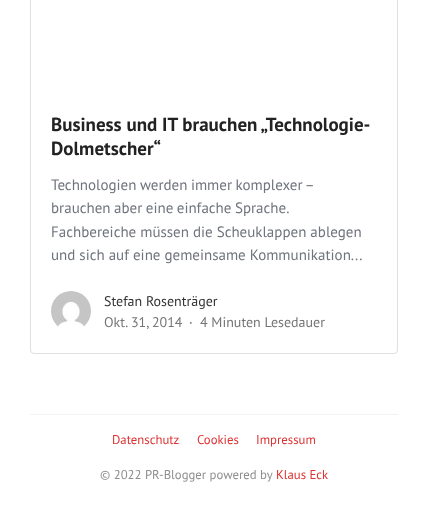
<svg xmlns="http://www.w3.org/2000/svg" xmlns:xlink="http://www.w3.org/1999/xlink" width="428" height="513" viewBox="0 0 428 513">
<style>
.cls-1{font:bold 19px PT Sans;fill:#222222}
.cls-2{font:15px PT Sans;fill:#6f737c}
.cls-3{font:14px PT Sans;fill:#333333}
.cls-4{font:14px PT Sans;fill:#757575}
.cls-5{font:14px PT Sans;fill:#5f636d}
.cls-6{font:12.75px PT Sans;fill:#dd3333}
.cls-7{font:12.75px PT Sans;fill:#8f8f8f}
</style>
<rect width="100%" height="100%" fill="#ffffff"/>
<rect fill="none" stroke="#dfdfdf" x="30.5" y="-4.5" width="367" height="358" rx="3.5"/>
<image xlink:href="image0.png" x="51" y="291" width="40" height="36"/>
<rect fill="#f2f2f2" x="30" y="414" width="368" height="1"/>
<text class="cls-1"><tspan x="51" y="131">Business und IT brauchen „Technologie-</tspan><tspan x="51" y="155">Dolmetscher“</tspan></text>
<text class="cls-2"><tspan x="51" y="190" word-spacing="-0.5">Technologien werden immer komplexer –</tspan><tspan x="51" y="213" word-spacing="-0.5">brauchen aber eine einfache Sprache.</tspan><tspan x="51" y="237">Fachbereiche müssen die Scheuklappen ablegen</tspan><tspan x="51" y="260">und sich auf eine gemeinsame Kommunikation...</tspan></text>
<text class="cls-3" x="104" y="306">Stefan Rosenträger</text>
<text class="cls-4" x="104" y="327">Okt. 31, 2014</text>
<text class="cls-5" x="189" y="327">·</text>
<text class="cls-4" x="200" y="327">4 Minuten Lesedauer</text>
<text class="cls-6" x="112" y="444">Datenschutz</text>
<text class="cls-6" x="197" y="444">Cookies</text>
<text class="cls-6" x="256" y="444">Impressum</text>
<text class="cls-7" x="100" y="479">© 2022 PR-Blogger powered by</text>
<text class="cls-6" x="276" y="479">Klaus Eck</text>
</svg>
